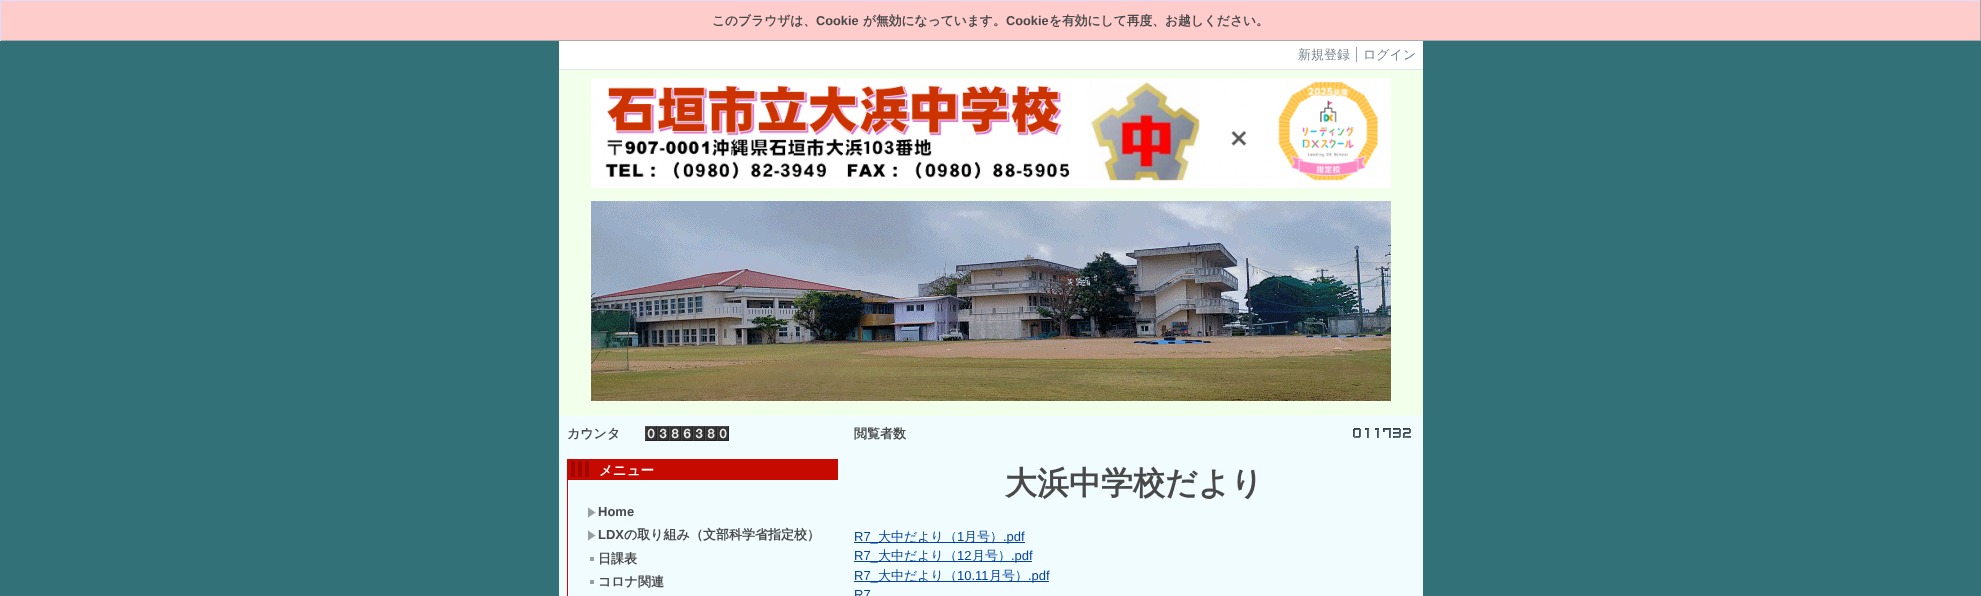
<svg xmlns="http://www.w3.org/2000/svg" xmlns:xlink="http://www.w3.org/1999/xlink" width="1981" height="596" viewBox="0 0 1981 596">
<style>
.cls-1{font:bold 12.75px WenQuanYi Zen Hei;fill:#494949}
.cls-2{font:bold 12.75px Liberation Sans;fill:#494949}
.cls-3{font:500 13px WenQuanYi Zen Hei;fill:#7a858f}
.cls-4{font:bold 13px WenQuanYi Zen Hei;fill:#494949}
.cls-5{font:bold 13.5px WenQuanYi Zen Hei;fill:#ffffff}
.cls-6{font:bold 13px Liberation Sans;fill:#494949}
.cls-7{font:bold 32px WenQuanYi Zen Hei;fill:#494949}
.cls-8{font:13px Liberation Sans;fill:#04419a}
.cls-9{font:500 13px WenQuanYi Zen Hei;fill:#04419a}
</style>
<rect width="100%" height="100%" fill="#327177"/>
<rect fill="#ffcccc" x="1" y="1" width="1979" height="39"/>
<rect fill="#ddddff" x="0" y="0" width="1981" height="1"/>
<rect fill="#aaaaaa" x="1980" y="0" width="1" height="41"/>
<rect fill="#aaaaaa" x="0" y="40" width="1981" height="1"/>
<rect fill="#ddddff" x="0" y="0" width="1" height="41"/>
<rect fill="#ffffff" x="559" y="41" width="864" height="28"/>
<rect fill="#dfe4e7" x="559" y="69" width="864" height="1"/>
<rect fill="#9999cc" x="1356" y="47" width="1" height="15"/>
<rect fill="#f2ffeb" x="559" y="70" width="864" height="346"/>
<image xlink:href="image0.png" x="591" y="78" width="800" height="110"/>
<image xlink:href="image1.png" x="591" y="201" width="800" height="200"/>
<rect fill="#f0fcff" x="559" y="416" width="864" height="180"/>
<image xlink:href="image2.png" x="645" y="426" width="12" height="15"/>
<image xlink:href="image3.png" x="657" y="426" width="12" height="15"/>
<image xlink:href="image4.png" x="669" y="426" width="12" height="15"/>
<image xlink:href="image5.png" x="681" y="426" width="12" height="15"/>
<image xlink:href="image3.png" x="693" y="426" width="12" height="15"/>
<image xlink:href="image4.png" x="705" y="426" width="12" height="15"/>
<image xlink:href="image2.png" x="717" y="426" width="12" height="15"/>
<rect fill="#c60a00" x="567" y="459" width="1" height="137"/>
<rect fill="#c60a00" x="568" y="459" width="270" height="21"/>
<rect fill="#9e0800" x="571" y="461" width="4" height="16"/>
<rect fill="#9e0800" x="578" y="461" width="4" height="16"/>
<rect fill="#9e0800" x="585" y="461" width="4" height="16"/>
<image xlink:href="image6.png" x="588" y="507" width="8" height="11"/>
<image xlink:href="image6.png" x="588" y="530" width="8" height="11"/>
<rect fill="#989ea7" x="590" y="557" width="4" height="4"/>
<rect fill="#989ea7" x="590" y="580" width="4" height="4"/>
<image xlink:href="image7.png" x="1353" y="428" width="8" height="10"/>
<image xlink:href="image8.png" x="1365" y="428" width="4" height="10"/>
<image xlink:href="image8.png" x="1375" y="428" width="4" height="10"/>
<image xlink:href="image9.png" x="1383" y="428" width="8" height="10"/>
<image xlink:href="image10.png" x="1393" y="428" width="8" height="10"/>
<image xlink:href="image11.png" x="1403" y="428" width="8" height="10"/>
<rect fill="#04419a" x="854" y="542" width="171" height="1"/>
<rect fill="#04419a" x="854" y="561" width="178" height="1"/>
<rect fill="#04419a" x="854" y="581" width="195" height="1"/>
<text class="cls-1" x="712" y="25">このブラウザは、</text>
<text class="cls-2" x="816" y="25">Cookie</text>
<text class="cls-1" x="863" y="25">が無効になっています。</text>
<text class="cls-2" x="1006" y="25">Cookie</text>
<text class="cls-1" x="1049" y="25">を有効にして再度、お越しください。</text>
<text class="cls-3" x="1298" y="59">新規登録</text>
<text class="cls-3" x="1363" y="59">ログイン</text>
<text class="cls-4" x="567" y="438">カウンタ</text>
<text class="cls-5" x="599" y="475">メニュー</text>
<text class="cls-6"><tspan x="598" y="516">Home</tspan><tspan x="598" y="539">LDX</tspan></text>
<text class="cls-4" x="624" y="539">の取り組み（文部科学省指定校）</text>
<text class="cls-4"><tspan x="598" y="563">日課表</tspan><tspan x="598" y="586">コロナ関連</tspan></text>
<text class="cls-4" x="854" y="438">閲覧者数</text>
<text class="cls-7" x="1005" y="494">大浜中学校だより</text>
<text class="cls-8" x="854" y="541">R7_</text>
<text class="cls-9" x="878" y="541">大中だより（</text>
<text class="cls-8" x="957" y="541">1</text>
<text class="cls-9" x="964" y="541">月号）</text>
<text class="cls-8" x="1003" y="541">.pdf</text>
<text class="cls-8" x="854" y="560">R7_</text>
<text class="cls-9" x="878" y="560">大中だより（</text>
<text class="cls-8" x="957" y="560">12</text>
<text class="cls-9" x="972" y="560">月号）</text>
<text class="cls-8" x="1011" y="560">.pdf</text>
<text class="cls-8" x="854" y="580">R7_</text>
<text class="cls-9" x="878" y="580">大中だより（</text>
<text class="cls-8" x="957" y="580">10.11</text>
<text class="cls-9" x="989" y="580">月号）</text>
<text class="cls-8" x="1028" y="580">.pdf</text>
<text class="cls-8" x="854" y="599">R7</text>
</svg>
